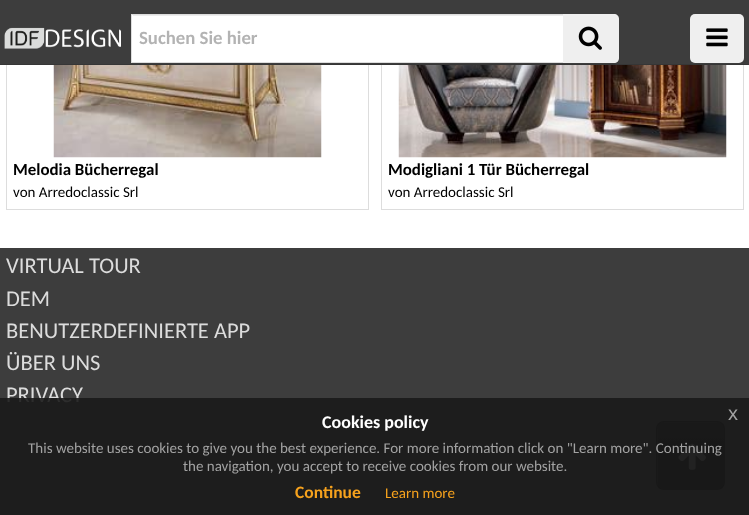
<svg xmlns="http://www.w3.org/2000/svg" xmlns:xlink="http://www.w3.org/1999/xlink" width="749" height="515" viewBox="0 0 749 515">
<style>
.cls-1{font:bold 18.75px Carlito;fill:#b3b3b3}
.cls-2{font:bold 16.9px Carlito;fill:#000000}
.cls-3{font:15px Carlito;fill:#000000}
.cls-4{font:22.5px Carlito;fill:#dcdcdc}
.cls-5{font:bold 18px Carlito;fill:#ffffff}
.cls-6{font:20px Liberation Sans;fill:#a2a2a2}
.cls-7{font:15px Carlito;fill:#a2a2a2}
.cls-8{font:bold 17.5px Carlito;fill:#f6a21d}
.cls-9{font:15px Carlito;fill:#f6a21d}
</style>
<defs>
<clipPath id="clip1"><rect x="656" y="421" width="69" height="69" rx="8"/></clipPath>
<linearGradient id="g1" gradientUnits="userSpaceOnUse" x1="691" y1="423" x2="691" y2="489"><stop offset="0" stop-color="#0f0f0f" stop-opacity="0.5"/><stop offset="0.6" stop-color="#000000" stop-opacity="0.5"/><stop offset="1" stop-color="#000000" stop-opacity="0.5"/></linearGradient>
</defs>
<rect width="100%" height="100%" fill="#ffffff"/>
<rect fill="none" stroke="#dddddd" x="6.5" y="-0.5" width="362" height="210"/>
<rect fill="none" stroke="#dddddd" x="381.5" y="-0.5" width="362" height="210"/>
<rect fill="#3d3d3d" x="0" y="0" width="749" height="64"/>
<rect fill="#363636" x="0" y="64" width="749" height="1"/>
<image xlink:href="image0.png" x="4" y="27" width="117" height="22"/>
<rect fill="#ffffff" x="132" y="15" width="431" height="47"/>
<rect fill="#ececec" x="133" y="15" width="430" height="1"/>
<rect fill="none" stroke="#dddddd" x="131.5" y="14.5" width="432" height="48"/>
<path fill="#efefef" d="M563 14H614C617 14 619 16 619 19V58C619 61 617 63 614 63H563Z"/>
<image xlink:href="image1.png" x="578" y="26" width="24" height="24"/>
<rect fill="#efefef" x="690" y="14" width="54" height="49" rx="5"/>
<image xlink:href="image2.png" x="706" y="28" width="22" height="19"/>
<image xlink:href="image3.png" x="53" y="65" width="269" height="93"/>
<image xlink:href="image4.png" x="398" y="65" width="329" height="93"/>
<rect fill="#3d3d3d" x="0" y="248" width="749" height="267"/>
<rect fill="#000000" fill-opacity="0.5" x="656" y="421" width="69" height="69" rx="8"/>
<g clip-path="url(#clip1)">
<rect fill="url(#g1)" x="658" y="423" width="66" height="66"/>
</g>
<rect fill="none" stroke="#000000" stroke-opacity="0.5" x="656.5" y="421.5" width="68" height="68" rx="7.5"/>
<image xlink:href="image5.png" x="678" y="443" width="28" height="27"/>
<text class="cls-1" x="139" y="44">Suchen Sie hier</text>
<text class="cls-2" x="13" y="175">Melodia Bücherregal</text>
<text class="cls-3" x="13" y="197">von Arredoclassic Srl</text>
<text class="cls-2" x="388" y="175">Modigliani 1 Tür Bücherregal</text>
<text class="cls-3" x="388" y="197">von Arredoclassic Srl</text>
<text class="cls-4"><tspan x="6" y="273">VIRTUAL TOUR</tspan><tspan x="6" y="306">DEM</tspan><tspan x="6" y="338">BENUTZERDEFINIERTE APP</tspan><tspan x="6" y="370">ÜBER UNS</tspan><tspan x="6" y="402">PRIVACY</tspan></text>
<rect fill="#191919" fill-opacity="0.9" x="0" y="398" width="749" height="117"/>
<text class="cls-5" x="322" y="428">Cookies policy</text>
<text class="cls-6" x="728" y="420">x</text>
<text class="cls-7" x="28" y="453">This website uses cookies to give you the best experience. For more information click on "Learn more". Continuing</text>
<text class="cls-7" x="183" y="471">the navigation, you accept to receive cookies from our website.</text>
<text class="cls-8" x="295" y="498">Continue</text>
<text class="cls-9" x="385" y="498">Learn more</text>
</svg>
